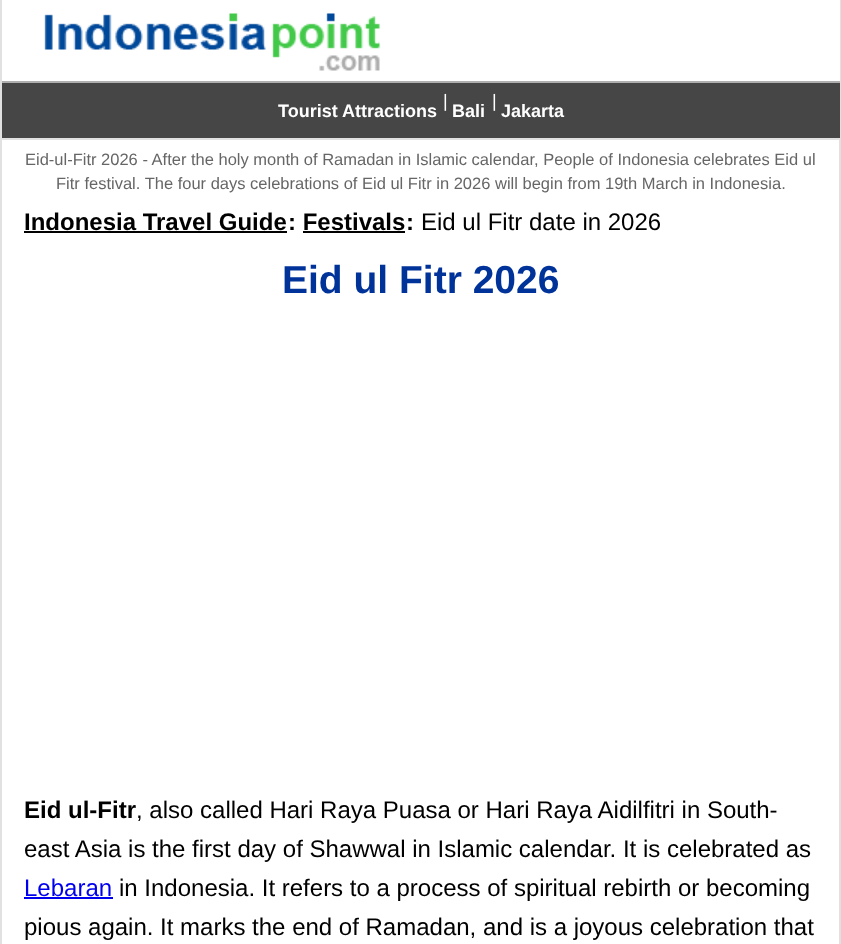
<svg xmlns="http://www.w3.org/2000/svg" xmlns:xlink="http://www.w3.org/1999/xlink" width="841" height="944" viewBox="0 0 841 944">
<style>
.cls-1{font:bold 18px Liberation Sans;fill:#ffffff}
.cls-2{font:18px Liberation Sans;fill:#ffffff}
.cls-3{font:16.5px Liberation Sans;fill:#666666}
.cls-4{font:bold 24px Liberation Sans;fill:#000000}
.cls-5{font:24px Liberation Sans;fill:#000000}
.cls-6{font:bold 39px Liberation Sans;fill:#003399}
.cls-7{font:24px Liberation Sans;fill:#0000ee}
</style>
<rect width="100%" height="100%" fill="#ffffff"/>
<rect fill="#e1e1e1" x="840" y="0" width="1" height="140"/>
<rect fill="#e1e1e1" x="0" y="0" width="2" height="944"/>
<rect fill="#afafaf" x="2" y="81" width="838" height="2"/>
<image xlink:href="image0.png" x="44" y="13" width="337" height="58"/>
<rect fill="#464646" x="2" y="83" width="838" height="55"/>
<rect fill="#e1e1e1" x="2" y="138" width="838" height="2"/>
<rect fill="#e1e1e1" x="839" y="140" width="2" height="804"/>
<rect fill="#000000" x="24" y="231" width="263" height="2"/>
<rect fill="#000000" x="303" y="231" width="102" height="2"/>
<rect fill="#0000ee" x="24" y="897" width="89" height="2"/>
<text class="cls-1" x="278" y="117">Tourist Attractions</text>
<text class="cls-2" x="443" y="107">|</text>
<text class="cls-1" x="452" y="117">Bali</text>
<text class="cls-2" x="492" y="107">|</text>
<text class="cls-1" x="501" y="117">Jakarta</text>
<text class="cls-3" x="25" y="165">Eid-ul-Fitr 2026 - After the holy month of Ramadan in Islamic calendar, People of Indonesia celebrates Eid ul</text>
<text class="cls-3" x="56" y="189">Fitr festival. The four days celebrations of Eid ul Fitr in 2026 will begin from 19th March in Indonesia.</text>
<text class="cls-4" x="24" y="230">Indonesia Travel Guide</text>
<text class="cls-4" x="288" y="230">: Festivals</text>
<text class="cls-4" x="406" y="230">:</text>
<text class="cls-5" x="421" y="230">Eid ul Fitr date in 2026</text>
<text class="cls-6" x="282" y="293">Eid ul Fitr 2026</text>
<text class="cls-4" x="24" y="818">Eid ul-Fitr</text>
<text class="cls-5" x="136" y="818">, also called Hari Raya Puasa or Hari Raya Aidilfitri in South-</text>
<text class="cls-5" x="24" y="857">east Asia is the first day of Shawwal in Islamic calendar. It is celebrated as</text>
<text class="cls-7" x="24" y="896">Lebaran</text>
<text class="cls-5" x="119" y="896">in Indonesia. It refers to a process of spiritual rebirth or becoming</text>
<text class="cls-5" x="24" y="935">pious again. It marks the end of Ramadan, and is a joyous celebration that</text>
</svg>
